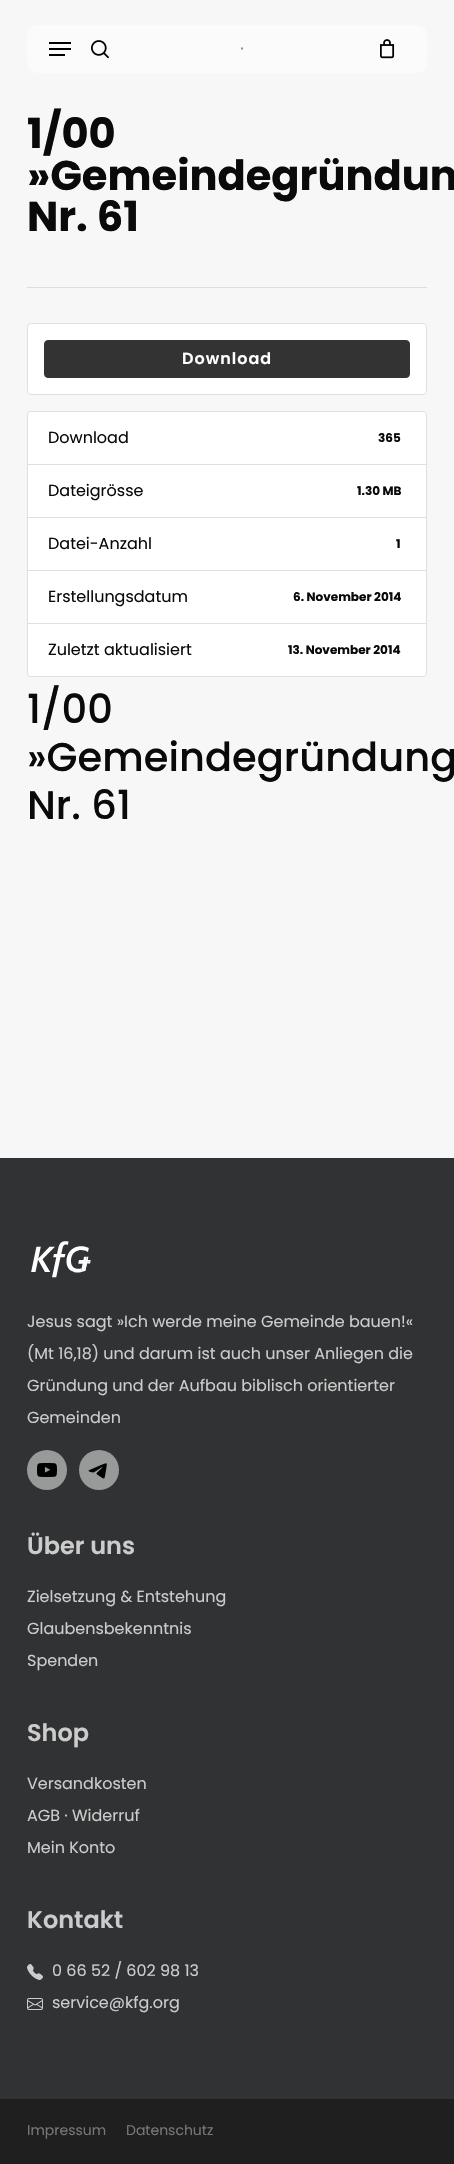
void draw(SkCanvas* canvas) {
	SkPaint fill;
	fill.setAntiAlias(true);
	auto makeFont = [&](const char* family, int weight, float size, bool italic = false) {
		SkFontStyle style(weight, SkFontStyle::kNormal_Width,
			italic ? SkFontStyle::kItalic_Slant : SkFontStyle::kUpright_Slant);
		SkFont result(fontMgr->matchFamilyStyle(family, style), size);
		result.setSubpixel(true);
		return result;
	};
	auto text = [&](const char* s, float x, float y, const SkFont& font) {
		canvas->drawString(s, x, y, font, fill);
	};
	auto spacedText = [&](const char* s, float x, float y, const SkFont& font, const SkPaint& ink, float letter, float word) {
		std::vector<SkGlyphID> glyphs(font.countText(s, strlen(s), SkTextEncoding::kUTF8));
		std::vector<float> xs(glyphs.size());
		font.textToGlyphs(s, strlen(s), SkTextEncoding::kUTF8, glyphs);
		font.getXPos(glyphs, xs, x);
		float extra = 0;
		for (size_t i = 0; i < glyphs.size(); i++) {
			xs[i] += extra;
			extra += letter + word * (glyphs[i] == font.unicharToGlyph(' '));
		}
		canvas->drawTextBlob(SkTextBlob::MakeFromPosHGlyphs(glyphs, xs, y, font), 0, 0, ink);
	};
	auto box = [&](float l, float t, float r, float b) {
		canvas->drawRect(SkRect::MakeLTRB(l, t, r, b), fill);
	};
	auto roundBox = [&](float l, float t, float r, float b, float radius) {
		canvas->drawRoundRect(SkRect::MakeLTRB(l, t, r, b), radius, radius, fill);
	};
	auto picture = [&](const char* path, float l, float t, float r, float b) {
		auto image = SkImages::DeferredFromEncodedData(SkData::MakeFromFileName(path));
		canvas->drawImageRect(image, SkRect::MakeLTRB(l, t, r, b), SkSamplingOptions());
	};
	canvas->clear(0xFFF7F7F7);
	fill.setColor(0xFFFBFBFB);
	roundBox(27, 25, 427, 73, 10);
	fill.setColor(0xFF000000);
	box(49, 42, 71, 44);
	box(49, 54, 65, 56);
	box(49, 48, 71, 50);
	picture("image0.png", 91, 40, 109, 59);
	picture("image1.png", 380, 39, 395, 59);
	fill.setColor(0xFF1D1D1B);
	canvas->drawPath(SkPathBuilder(SkPathFillType::kEvenOdd).moveTo(241.5f, 47.5f).lineTo(241.5f, 49.5f).lineTo(242.5f, 49.5f).lineTo(242.5f, 47.5f).close().detach(), fill);
	fill.setColor(0xFFDDDDDD);
	box(27, 287, 427, 288);
	fill.setColor(0xFFFFFFFF);
	roundBox(27, 323, 427, 395, 4);
	fill.setStyle(SkPaint::kStroke_Style);
	fill.setStrokeWidth(1);
	fill.setColor(0x1F000000);
	canvas->drawRoundRect(SkRect::MakeLTRB(27.5f, 323.5f, 426.5f, 394.5f), 3.5f, 3.5f, fill);
	fill.setStyle(SkPaint::kFill_Style);
	fill.setColor(0xFF333333);
	canvas->drawRoundRect(SkRect::MakeLTRB(44.5f, 340.5f, 409.5f, 377.5f), 3.5f, 3.5f, fill);
	fill.setStyle(SkPaint::kStroke_Style);
	canvas->drawRoundRect(SkRect::MakeLTRB(44.5f, 340.5f, 409.5f, 377.5f), 3.5f, 3.5f, fill);
	fill.setStyle(SkPaint::kFill_Style);
	fill.setColor(0xFFFFFFFF);
	canvas->drawPath(SkPathBuilder().moveTo(31, 411).lineTo(423, 411).cubicTo(425, 411, 427, 413, 427, 415).lineTo(427, 465).lineTo(27, 465).lineTo(27, 415).cubicTo(27, 413, 29, 411, 31, 411).close().detach(), fill);
	fill.setStyle(SkPaint::kStroke_Style);
	fill.setColor(0x1F000000);
	canvas->drawPath(SkPathBuilder().moveTo(31, 411.5f).lineTo(423, 411.5f).cubicTo(425, 411.5f, 426.5f, 413, 426.5f, 415).lineTo(426.5f, 464.5f).lineTo(27.5f, 464.5f).lineTo(27.5f, 415).cubicTo(27.5f, 413, 29, 411.5f, 31, 411.5f).close().detach(), fill);
	fill.setStyle(SkPaint::kFill_Style);
	fill.setColor(0xFFFFFFFF);
	canvas->drawRect(SkRect::MakeLTRB(27.5f, 464.5f, 426.5f, 517.5f), fill);
	fill.setStyle(SkPaint::kStroke_Style);
	fill.setColor(0xFFDFDFDF);
	canvas->drawRect(SkRect::MakeLTRB(27.5f, 464.5f, 426.5f, 517.5f), fill);
	fill.setStyle(SkPaint::kFill_Style);
	fill.setColor(0xFFFFFFFF);
	canvas->drawRect(SkRect::MakeLTRB(27.5f, 517.5f, 426.5f, 570.5f), fill);
	fill.setStyle(SkPaint::kStroke_Style);
	fill.setColor(0xFFDFDFDF);
	canvas->drawRect(SkRect::MakeLTRB(27.5f, 517.5f, 426.5f, 570.5f), fill);
	fill.setStyle(SkPaint::kFill_Style);
	fill.setColor(0xFFFFFFFF);
	canvas->drawRect(SkRect::MakeLTRB(27.5f, 570.5f, 426.5f, 623.5f), fill);
	fill.setStyle(SkPaint::kStroke_Style);
	fill.setColor(0xFFDFDFDF);
	canvas->drawRect(SkRect::MakeLTRB(27.5f, 570.5f, 426.5f, 623.5f), fill);
	fill.setStyle(SkPaint::kFill_Style);
	fill.setColor(0xFFFFFFFF);
	canvas->drawPath(SkPathBuilder().moveTo(27, 623).lineTo(427, 623).lineTo(427, 673).cubicTo(427, 675, 425, 677, 423, 677).lineTo(31, 677).cubicTo(29, 677, 27, 675, 27, 673).close().detach(), fill);
	fill.setStyle(SkPaint::kStroke_Style);
	fill.setColor(0x1F000000);
	canvas->drawPath(SkPathBuilder().moveTo(27.5f, 623.5f).lineTo(426.5f, 623.5f).lineTo(426.5f, 673).cubicTo(426.5f, 675, 425, 676.5f, 423, 676.5f).lineTo(31, 676.5f).cubicTo(29, 676.5f, 27.5f, 675, 27.5f, 673).close().detach(), fill);
	fill.setStyle(SkPaint::kFill_Style);
	fill.setColor(0xFF313233);
	box(0, 1158, 454, 2099);
	picture("image2.png", 31, 1241, 91, 1278);
	fill.setColor(0xFF989999);
	canvas->drawCircle(47, 1470, 20, fill);
	picture("image3.png", 37, 1463, 57, 1477);
	canvas->drawCircle(99, 1470, 20, fill);
	picture("image4.png", 88, 1463, 107, 1479);
	picture("image5.png", 27, 1964, 43, 1980);
	picture("image6.png", 27, 1998, 43, 2010);
	fill.setColor(0xFF1F1F1F);
	box(0, 2099, 454, 2164);
	auto font1 = makeFont("Poppins", 700, 41.6f);
	fill.setColor(0xFF0A0A0A);
	text("1/00", 27, 148, font1);
	text("»Gemeindegründun", 27, 190, font1);
	text("Nr. 61", 27, 231, font1);
	auto font2 = makeFont("Poppins", 600, 16);
	fill.setColor(0xFFFFFFFF);
	spacedText("Download", 182, 364, font2, fill, 1, 0);
	auto font3 = makeFont("Poppins", 400, 16);
	fill.setColor(0xFF0A0A0A);
	text("Download", 48, 443, font3);
	auto font4 = makeFont("Poppins", 700, 12);
	text("365", 378, 442, font4);
	text("Dateigrösse", 48, 496, font3);
	text("1.30 MB", 357, 495, font4);
	text("Datei-Anzahl", 48, 549, font3);
	text("1", 396, 548, font4);
	text("Erstellungsdatum", 48, 602, font3);
	text("6. November 2014", 293, 601, font4);
	text("Zuletzt aktualisiert", 48, 655, font3);
	text("13. November 2014", 288, 654, font4);
	auto font5 = makeFont("Poppins", 500, 40);
	text("1/00", 27, 723, font5);
	text("»Gemeindegründung", 27, 771, font5);
	text("Nr. 61", 27, 819, font5);
	fill.setColor(0xFFCCCCCC);
	text("Jesus sagt »Ich werde meine Gemeinde bauen!«", 27, 1327, font3);
	text("(Mt 16,18) und darum ist auch unser Anliegen die", 27, 1359, font3);
	text("Gründung und der Aufbau biblisch orientierter", 27, 1391, font3);
	text("Gemeinden", 27, 1423, font3);
	auto font6 = makeFont("Poppins", 600, 24);
	text("Über uns", 27, 1554, font6);
	text("Zielsetzung & Entstehung", 27, 1602, font3);
	text("Glaubensbekenntnis", 27, 1634, font3);
	text("Spenden", 27, 1666, font3);
	text("Shop", 27, 1741, font6);
	text("Versandkosten", 27, 1789, font3);
	text("AGB · Widerruf", 27, 1821, font3);
	text("Mein Konto", 27, 1853, font3);
	text("Kontakt", 27, 1928, font6);
	text("0 66 52 / 602 98 13", 52, 1976, font3);
	text("service@kfg.org", 52, 2008, font3);
	auto font7 = makeFont("Poppins", 400, 14);
	fill.setColor(0xFF777777);
	text("Impressum", 27, 2135, font7);
	text("Datenschutz", 126, 2135, font7);
}
